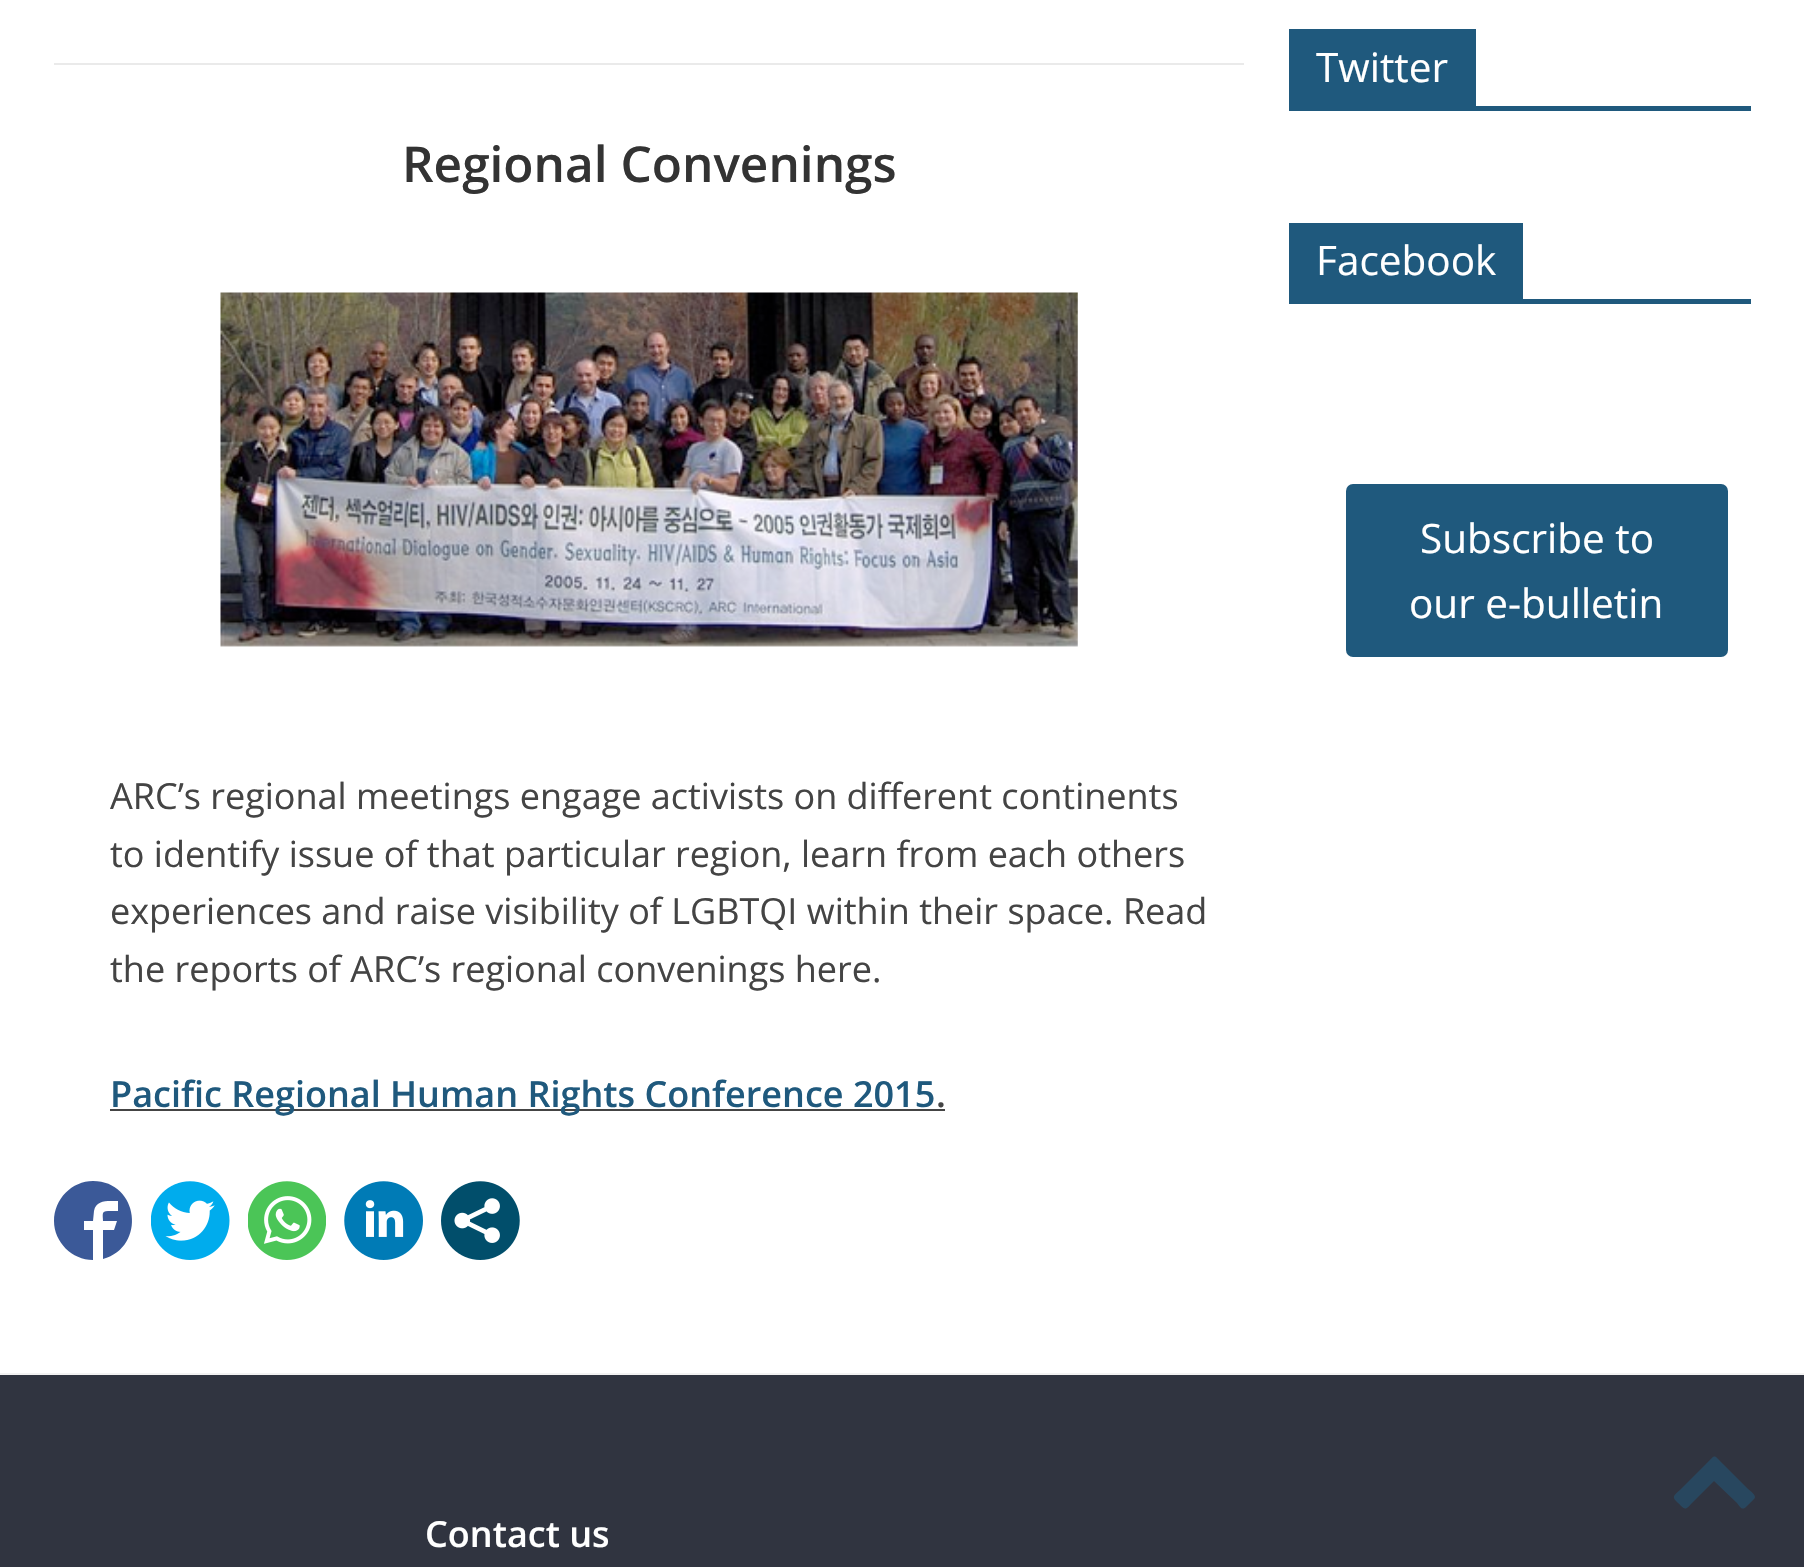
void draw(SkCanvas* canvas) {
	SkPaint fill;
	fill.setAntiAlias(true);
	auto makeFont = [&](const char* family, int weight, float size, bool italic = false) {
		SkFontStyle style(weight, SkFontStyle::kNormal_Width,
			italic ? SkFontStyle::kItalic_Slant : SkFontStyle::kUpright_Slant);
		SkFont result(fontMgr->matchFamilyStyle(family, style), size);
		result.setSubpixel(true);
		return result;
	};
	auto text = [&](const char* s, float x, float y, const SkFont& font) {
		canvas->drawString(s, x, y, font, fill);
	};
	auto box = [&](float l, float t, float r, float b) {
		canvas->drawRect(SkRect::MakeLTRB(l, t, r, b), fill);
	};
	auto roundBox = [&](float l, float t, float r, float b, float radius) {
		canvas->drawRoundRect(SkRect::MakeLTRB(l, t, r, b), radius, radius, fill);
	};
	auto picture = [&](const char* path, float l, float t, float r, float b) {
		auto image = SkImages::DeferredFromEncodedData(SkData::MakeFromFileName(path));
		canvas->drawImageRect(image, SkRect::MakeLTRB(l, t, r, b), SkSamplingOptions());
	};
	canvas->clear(0xFFFFFFFF);
	fill.setColor(0xFFEAEAEA);
	box(54, 63, 1244, 65);
	picture("image0.png", 220, 292, 1078, 647);
	fill.setColor(0xFF444444);
	box(110, 1109, 945, 1111);
	fill.setColor(0xFF3B5998);
	canvas->drawPath(SkPathBuilder().moveTo(93, 1181).cubicTo(72, 1181, 54, 1199, 54, 1221).cubicTo(54, 1242, 72, 1260, 93, 1260).lineTo(93, 1230).lineTo(84, 1230).lineTo(84, 1221).lineTo(93, 1221).lineTo(94, 1211).cubicTo(96, 1199, 109, 1201, 118, 1201).lineTo(118, 1211).lineTo(108, 1211).cubicTo(101, 1211, 103, 1215, 103, 1221).lineTo(117, 1221).lineTo(114, 1230).lineTo(103, 1230).lineTo(103, 1259).cubicTo(147, 1247, 139, 1181, 93, 1181).close().detach(), fill);
	picture("image1.png", 151, 1181, 230, 1260);
	picture("image2.png", 248, 1181, 326, 1260);
	picture("image3.png", 344, 1181, 423, 1260);
	picture("image4.png", 441, 1181, 520, 1260);
	fill.setColor(0xFF1F597D);
	box(1289, 106, 1751, 111);
	box(1289, 29, 1476, 106);
	box(1289, 299, 1751, 304);
	box(1289, 223, 1523, 299);
	roundBox(1346, 484, 1728, 657, 7);
	fill.setColor(0xFF303440);
	box(0, 1375, 1804, 1567);
	fill.setColor(0xFF28475F);
	canvas->drawPath(SkPathBuilder().moveTo(1754, 1499).lineTo(1747, 1506).cubicTo(1742, 1511, 1741, 1508, 1737, 1503).lineTo(1714, 1481).lineTo(1692, 1503).cubicTo(1684, 1512, 1685, 1509, 1676, 1501).cubicTo(1671, 1496, 1676, 1494, 1681, 1489).lineTo(1706, 1464).cubicTo(1716, 1454, 1713, 1454, 1723, 1464).lineTo(1748, 1489).cubicTo(1749, 1490, 1758, 1496, 1754, 1499).close().detach(), fill);
	fill.setColor(0xFFF2F2F2);
	box(0, 1373, 1804, 1375);
	auto font1 = makeFont("Open Sans", 600, 49.5f);
	fill.setColor(0xFF333333);
	text("Regional Convenings", 402, 182, font1);
	auto font2 = makeFont("Open Sans", 400, 36);
	fill.setColor(0xFF444444);
	text("ARC’s regional meetings engage activists on different continents", 110, 809, font2);
	text("to identify issue of that particular region, learn from each others", 110, 867, font2);
	text("experiences and raise visibility of LGBTQI within their space. Read", 110, 924, font2);
	text("the reports of ARC’s regional convenings here.", 110, 982, font2);
	auto font3 = makeFont("Open Sans", 600, 36);
	fill.setColor(0xFF1F597D);
	text("Pacific Regional Human Rights Conference 2015", 110, 1107, font3);
	fill.setColor(0xFF444444);
	text(".", 936, 1107, font3);
	auto font4 = makeFont("Open Sans", 400, 40.5f);
	fill.setColor(0xFFFFFFFF);
	text("Twitter", 1316, 82, font4);
	text("Facebook", 1316, 275, font4);
	text("Subscribe to", 1420, 553, font4);
	text("our e-bulletin", 1409, 618, font4);
	text("Contact us", 425, 1547, font3);
}
